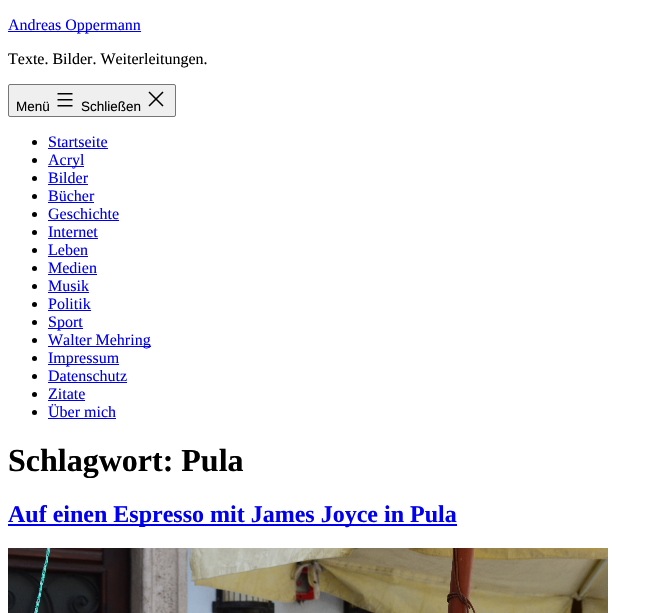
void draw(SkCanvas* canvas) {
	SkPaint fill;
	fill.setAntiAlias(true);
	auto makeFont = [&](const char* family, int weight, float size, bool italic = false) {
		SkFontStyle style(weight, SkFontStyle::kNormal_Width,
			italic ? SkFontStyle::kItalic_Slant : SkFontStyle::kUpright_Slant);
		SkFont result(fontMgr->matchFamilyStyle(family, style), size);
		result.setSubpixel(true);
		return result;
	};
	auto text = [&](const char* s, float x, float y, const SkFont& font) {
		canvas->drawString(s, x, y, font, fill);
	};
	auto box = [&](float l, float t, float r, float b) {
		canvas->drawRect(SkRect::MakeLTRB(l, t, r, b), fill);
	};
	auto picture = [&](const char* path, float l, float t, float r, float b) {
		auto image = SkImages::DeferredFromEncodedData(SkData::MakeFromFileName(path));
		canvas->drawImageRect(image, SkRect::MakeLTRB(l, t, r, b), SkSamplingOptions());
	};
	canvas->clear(0xFFFFFFFF);
	fill.setColor(0xFF0000EE);
	box(8, 31, 141, 32);
	fill.setColor(0xFFEFEFEF);
	canvas->drawRoundRect(SkRect::MakeLTRB(8.5f, 84.5f, 175.5f, 116.5f), 1.5f, 1.5f, fill);
	fill.setStyle(SkPaint::kStroke_Style);
	fill.setStrokeWidth(1);
	fill.setColor(0xFF767676);
	canvas->drawRoundRect(SkRect::MakeLTRB(8.5f, 84.5f, 175.5f, 116.5f), 1.5f, 1.5f, fill);
	picture("image0.png", 57, 93, 73, 107);
	picture("image1.png", 148, 91, 164, 107);
	fill.setStyle(SkPaint::kFill_Style);
	fill.setColor(0xFF000000);
	canvas->drawCircle(34.5f, 142.5f, 2.5f, fill);
	fill.setColor(0xFF0000EE);
	box(48, 148, 108, 149);
	fill.setColor(0xFF000000);
	canvas->drawCircle(34.5f, 160.5f, 2.5f, fill);
	fill.setColor(0xFF0000EE);
	box(48, 166, 84, 167);
	fill.setColor(0xFF000000);
	canvas->drawCircle(34.5f, 178.5f, 2.5f, fill);
	fill.setColor(0xFF0000EE);
	box(48, 184, 88, 185);
	fill.setColor(0xFF000000);
	canvas->drawCircle(34.5f, 196.5f, 2.5f, fill);
	fill.setColor(0xFF0000EE);
	box(48, 202, 94, 203);
	fill.setColor(0xFF000000);
	canvas->drawCircle(34.5f, 214.5f, 2.5f, fill);
	fill.setColor(0xFF0000EE);
	box(48, 220, 119, 221);
	fill.setColor(0xFF000000);
	canvas->drawCircle(34.5f, 232.5f, 2.5f, fill);
	fill.setColor(0xFF0000EE);
	box(48, 238, 98, 239);
	fill.setColor(0xFF000000);
	canvas->drawCircle(34.5f, 250.5f, 2.5f, fill);
	fill.setColor(0xFF0000EE);
	box(48, 256, 88, 257);
	fill.setColor(0xFF000000);
	canvas->drawCircle(34.5f, 268.5f, 2.5f, fill);
	fill.setColor(0xFF0000EE);
	box(48, 274, 97, 275);
	fill.setColor(0xFF000000);
	canvas->drawCircle(34.5f, 286.5f, 2.5f, fill);
	fill.setColor(0xFF0000EE);
	box(48, 292, 89, 293);
	fill.setColor(0xFF000000);
	canvas->drawCircle(34.5f, 304.5f, 2.5f, fill);
	fill.setColor(0xFF0000EE);
	box(48, 310, 91, 311);
	fill.setColor(0xFF000000);
	canvas->drawCircle(34.5f, 322.5f, 2.5f, fill);
	fill.setColor(0xFF0000EE);
	box(48, 328, 83, 329);
	fill.setColor(0xFF000000);
	canvas->drawCircle(34.5f, 340.5f, 2.5f, fill);
	fill.setColor(0xFF0000EE);
	box(48, 346, 151, 347);
	fill.setColor(0xFF000000);
	canvas->drawCircle(34.5f, 358.5f, 2.5f, fill);
	fill.setColor(0xFF0000EE);
	box(48, 364, 119, 365);
	fill.setColor(0xFF000000);
	canvas->drawCircle(34.5f, 376.5f, 2.5f, fill);
	fill.setColor(0xFF0000EE);
	box(48, 382, 127, 383);
	fill.setColor(0xFF000000);
	canvas->drawCircle(34.5f, 394.5f, 2.5f, fill);
	fill.setColor(0xFF0000EE);
	box(48, 400, 85, 401);
	fill.setColor(0xFF000000);
	canvas->drawCircle(34.5f, 412.5f, 2.5f, fill);
	fill.setColor(0xFF0000EE);
	box(48, 418, 116, 419);
	box(8, 524, 457, 526);
	picture("image2.png", 8, 548, 608, 613);
	auto font1 = makeFont("Liberation Serif", 400, 16);
	text("Andreas Oppermann", 8, 30, font1);
	fill.setColor(0xFF000000);
	text("Texte. Bilder. Weiterleitungen.", 8, 64, font1);
	auto font2 = makeFont("Liberation Sans", 400, 13.5f);
	text("Menü", 16, 111, font2);
	text("Schließen", 81, 111, font2);
	fill.setColor(0xFF0000EE);
	text("Startseite", 48, 147, font1);
	text("Acryl", 48, 165, font1);
	text("Bilder", 48, 183, font1);
	text("Bücher", 48, 201, font1);
	text("Geschichte", 48, 219, font1);
	text("Internet", 48, 237, font1);
	text("Leben", 48, 255, font1);
	text("Medien", 48, 273, font1);
	text("Musik", 48, 291, font1);
	text("Politik", 48, 309, font1);
	text("Sport", 48, 327, font1);
	text("Walter Mehring", 48, 345, font1);
	text("Impressum", 48, 363, font1);
	text("Datenschutz", 48, 381, font1);
	text("Zitate", 48, 399, font1);
	text("Über mich", 48, 417, font1);
	auto font3 = makeFont("Liberation Serif", 700, 32);
	fill.setColor(0xFF000000);
	text("Schlagwort: Pula", 8, 471, font3);
	auto font4 = makeFont("Liberation Serif", 700, 24);
	fill.setColor(0xFF0000EE);
	text("Auf einen Espresso mit James Joyce in Pula", 8, 522, font4);
}
